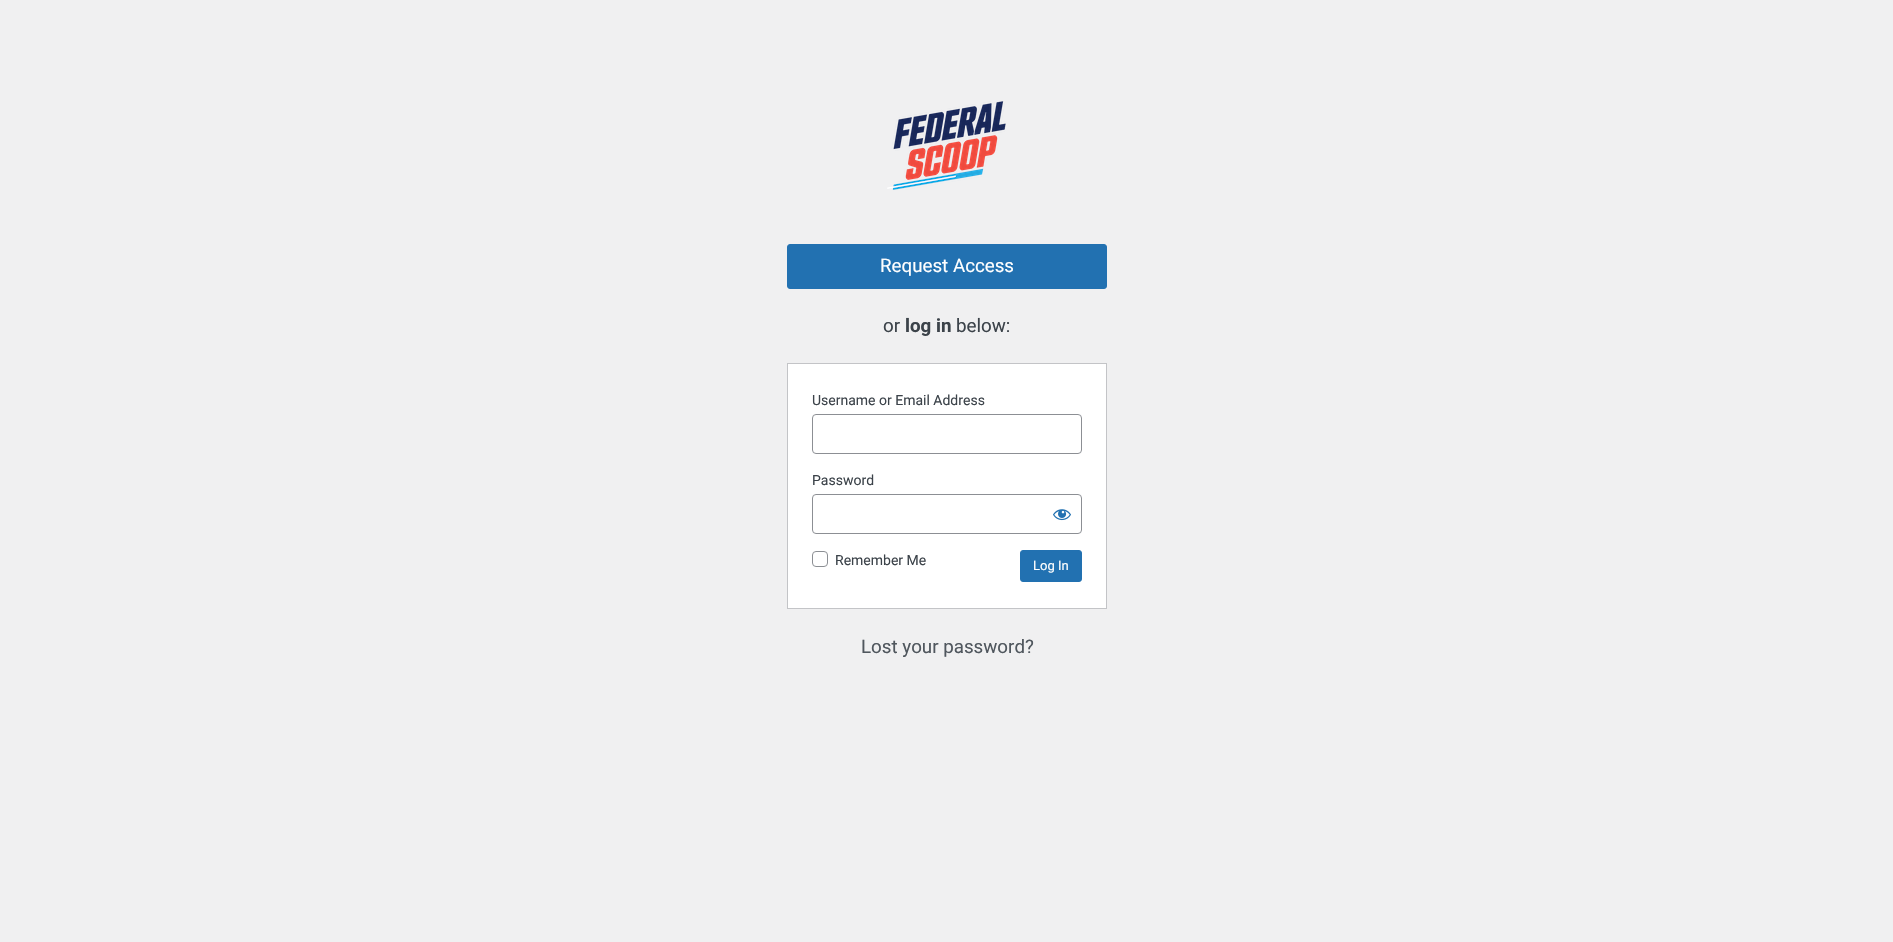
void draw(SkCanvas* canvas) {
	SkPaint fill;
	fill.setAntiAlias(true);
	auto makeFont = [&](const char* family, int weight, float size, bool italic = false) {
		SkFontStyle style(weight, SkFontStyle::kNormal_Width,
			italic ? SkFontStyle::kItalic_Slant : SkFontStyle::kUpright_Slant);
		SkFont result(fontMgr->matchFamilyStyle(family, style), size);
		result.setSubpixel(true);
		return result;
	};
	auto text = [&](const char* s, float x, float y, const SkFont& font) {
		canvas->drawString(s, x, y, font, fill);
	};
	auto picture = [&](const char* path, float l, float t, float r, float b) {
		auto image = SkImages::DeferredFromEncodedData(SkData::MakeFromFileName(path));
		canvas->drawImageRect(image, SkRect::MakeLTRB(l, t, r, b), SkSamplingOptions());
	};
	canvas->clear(0xFFF0F0F1);
	picture("image0.png", 887, 101, 1006, 190);
	fill.setColor(0xFF2271B1);
	canvas->drawRoundRect(SkRect::MakeLTRB(787.5f, 244.5f, 1106.5f, 288.5f), 2.5f, 2.5f, fill);
	fill.setStyle(SkPaint::kStroke_Style);
	fill.setStrokeWidth(1);
	canvas->drawRoundRect(SkRect::MakeLTRB(787.5f, 244.5f, 1106.5f, 288.5f), 2.5f, 2.5f, fill);
	fill.setStyle(SkPaint::kFill_Style);
	fill.setColor(0xFFFFFFFF);
	canvas->drawRect(SkRect::MakeLTRB(787.5f, 363.5f, 1106.5f, 608.5f), fill);
	fill.setStyle(SkPaint::kStroke_Style);
	fill.setColor(0xFFC3C4C7);
	canvas->drawRect(SkRect::MakeLTRB(787.5f, 363.5f, 1106.5f, 608.5f), fill);
	fill.setColor(0xFF8C8F94);
	canvas->drawRoundRect(SkRect::MakeLTRB(812.5f, 414.5f, 1081.5f, 453.5f), 3.5f, 3.5f, fill);
	canvas->drawRoundRect(SkRect::MakeLTRB(812.5f, 494.5f, 1081.5f, 533.5f), 3.5f, 3.5f, fill);
	picture("image1.png", 1053, 509, 1071, 521);
	canvas->drawRoundRect(SkRect::MakeLTRB(812.5f, 551.5f, 827.5f, 566.5f), 3.5f, 3.5f, fill);
	fill.setStyle(SkPaint::kFill_Style);
	fill.setColor(0xFF2271B1);
	canvas->drawRoundRect(SkRect::MakeLTRB(1020.5f, 550.5f, 1081.5f, 581.5f), 2.5f, 2.5f, fill);
	fill.setStyle(SkPaint::kStroke_Style);
	canvas->drawRoundRect(SkRect::MakeLTRB(1020.5f, 550.5f, 1081.5f, 581.5f), 2.5f, 2.5f, fill);
	auto font1 = makeFont("Roboto", 400, 18.75f);
	fill.setStyle(SkPaint::kFill_Style);
	fill.setColor(0xFFFFFFFF);
	text("Request Access", 880, 272, font1);
	fill.setColor(0xFF3C434A);
	text("or", 883, 332, font1);
	auto font2 = makeFont("Roboto", 700, 18.75f);
	text("log in", 905, 332, font2);
	text("below:", 956, 332, font1);
	auto font3 = makeFont("Roboto", 400, 14);
	text("Username or Email Address", 812, 405, font3);
	text("Password", 812, 485, font3);
	text("Remember Me", 835, 565, font3);
	auto font4 = makeFont("Roboto", 400, 13);
	fill.setColor(0xFFFFFFFF);
	text("Log In", 1033, 570, font4);
	fill.setColor(0xFF50575E);
	text("Lost your password?", 861, 653, font1);
}
